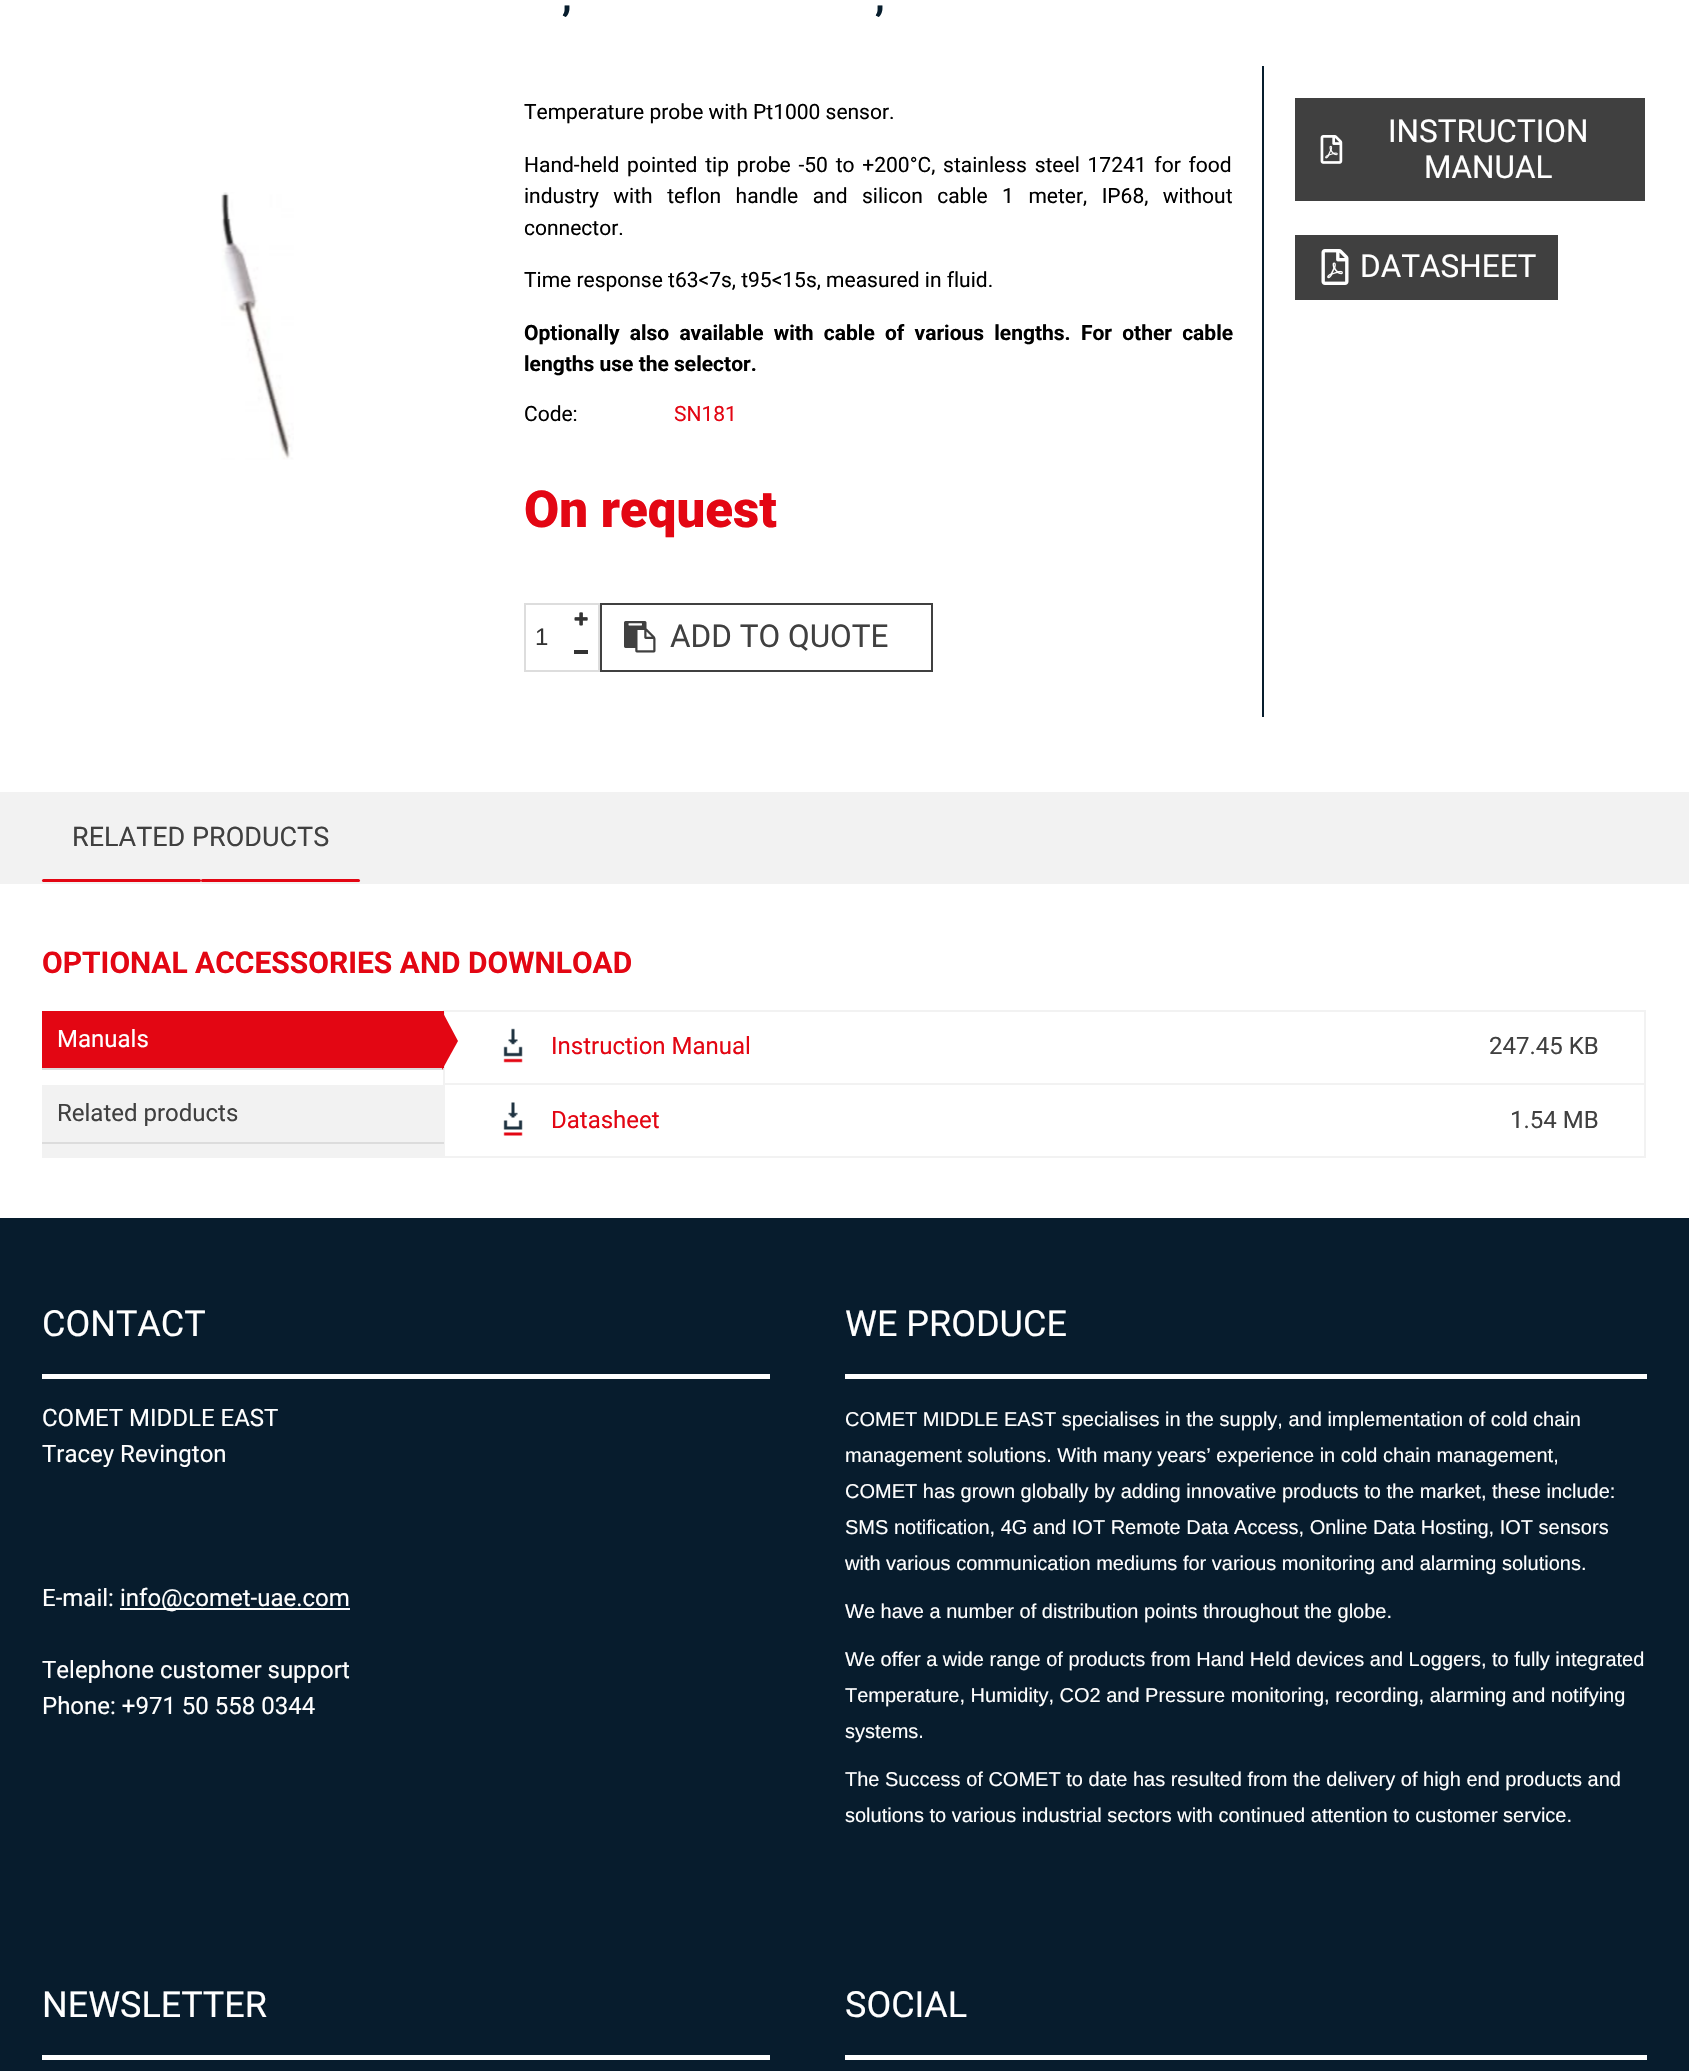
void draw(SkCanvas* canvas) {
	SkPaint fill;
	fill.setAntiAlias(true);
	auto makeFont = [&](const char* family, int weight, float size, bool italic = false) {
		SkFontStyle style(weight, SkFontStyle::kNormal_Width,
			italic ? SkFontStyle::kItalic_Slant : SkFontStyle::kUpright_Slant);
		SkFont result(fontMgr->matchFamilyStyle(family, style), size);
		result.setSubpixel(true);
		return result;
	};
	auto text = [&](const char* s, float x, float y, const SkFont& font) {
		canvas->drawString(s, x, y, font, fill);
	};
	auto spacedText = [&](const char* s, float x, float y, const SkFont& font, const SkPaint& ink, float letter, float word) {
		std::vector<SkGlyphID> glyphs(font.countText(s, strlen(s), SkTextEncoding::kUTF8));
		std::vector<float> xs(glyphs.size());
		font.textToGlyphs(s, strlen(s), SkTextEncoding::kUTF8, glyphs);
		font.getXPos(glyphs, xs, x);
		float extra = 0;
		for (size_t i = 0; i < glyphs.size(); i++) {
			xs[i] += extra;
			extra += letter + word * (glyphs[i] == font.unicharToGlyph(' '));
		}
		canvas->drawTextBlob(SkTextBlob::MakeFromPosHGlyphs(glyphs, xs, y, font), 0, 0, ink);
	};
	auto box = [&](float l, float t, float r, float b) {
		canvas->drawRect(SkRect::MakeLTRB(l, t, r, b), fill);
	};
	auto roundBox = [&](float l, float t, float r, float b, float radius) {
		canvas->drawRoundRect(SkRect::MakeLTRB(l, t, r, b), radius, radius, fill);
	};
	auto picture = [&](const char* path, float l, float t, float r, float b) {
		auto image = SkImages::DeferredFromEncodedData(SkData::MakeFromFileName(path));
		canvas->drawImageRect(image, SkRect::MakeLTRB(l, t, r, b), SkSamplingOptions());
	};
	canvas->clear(0xFFFFFFFF);
	picture("image0.png", 221, 192, 294, 460);
	fill.setColor(0xFF071D2D);
	box(1262, 66, 1264, 717);
	fill.setStyle(SkPaint::kStroke_Style);
	fill.setStrokeWidth(2);
	fill.setColor(0xFFDDDDDD);
	canvas->drawRect(SkRect::MakeLTRB(525, 604, 599, 671), fill);
	picture("image1.png", 574, 612, 588, 626);
	fill.setStyle(SkPaint::kFill_Style);
	fill.setColor(0xFF333333);
	box(574, 650, 588, 654);
	fill.setStyle(SkPaint::kStroke_Style);
	fill.setColor(0xFF404040);
	canvas->drawRect(SkRect::MakeLTRB(601, 604, 932, 671), fill);
	picture("image2.png", 624, 621, 656, 653);
	fill.setStyle(SkPaint::kFill_Style);
	box(1295, 98, 1645, 201);
	picture("image3.png", 1320, 135, 1343, 164);
	box(1295, 235, 1558, 300);
	picture("image4.png", 1321, 249, 1349, 285);
	fill.setColor(0xFFF2F2F2);
	box(0, 792, 1689, 884);
	fill.setColor(0xFFE30613);
	roundBox(42, 879, 201, 882, 1.5f);
	roundBox(201, 879, 360, 882, 1.5f);
	fill.setColor(0xFFF2F2F2);
	box(42, 1085, 443, 1158);
	fill.setStyle(SkPaint::kStroke_Style);
	canvas->drawRect(SkRect::MakeLTRB(444, 1011, 1645, 1084), fill);
	fill.setStyle(SkPaint::kFill_Style);
	fill.setColor(0xFFE30613);
	box(42, 1011, 444, 1068);
	fill.setColor(0xFFDCDCDC);
	box(42, 1068, 444, 1070);
	fill.setColor(0xFFE30613);
	canvas->drawPath(SkPathBuilder().moveTo(442, 1070).lineTo(442, 1011).lineTo(458, 1041).close().detach(), fill);
	fill.setStyle(SkPaint::kStroke_Style);
	fill.setColor(0xFFF2F2F2);
	canvas->drawRect(SkRect::MakeLTRB(444, 1084, 1645, 1157), fill);
	fill.setStyle(SkPaint::kFill_Style);
	fill.setColor(0xFFDCDCDC);
	box(42, 1142, 444, 1144);
	picture("image5.png", 503, 1028, 523, 1063);
	picture("image6.png", 503, 1102, 523, 1136);
	fill.setColor(0xFF071C2D);
	box(0, 1218, 1689, 2071);
	fill.setColor(0xFFFFFFFF);
	box(42, 1374, 770, 1379);
	box(120, 1608, 350, 1610);
	box(845, 1374, 1647, 1379);
	box(42, 2055, 770, 2060);
	box(845, 2055, 1647, 2060);
	auto font1 = makeFont("Roboto", 900, 36);
	fill.setColor(0xFF071D2D);
	text(",", 562, 10, font1);
	text(",", 875, 10, font1);
	auto font2 = makeFont("Roboto", 400, 21);
	fill.setColor(0xFF000000);
	text("Temperature probe with Pt1000 sensor.", 524, 119, font2);
	spacedText("Hand-held pointed tip probe -50 to +200°C, stainless steel 17241 for food", 524, 172, font2, fill, 0, 2.6f);
	spacedText("industry with teflon handle and silicon cable 1 meter, IP68, without", 524, 203, font2, fill, 0, 9.25f);
	text("connector.", 524, 235, font2);
	text("Time response t63<7s, t95<15s, measured in fluid.", 524, 287, font2);
	auto font3 = makeFont("Roboto", 700, 21);
	spacedText("Optionally also available with cable of various lengths. For other cable", 524, 340, font3, fill, 0, 5);
	text("lengths use the selector.", 524, 371, font3);
	text("Code:", 524, 421, font2);
	fill.setColor(0xFFE30613);
	text("SN181", 674, 421, font2);
	auto font4 = makeFont("Roboto", 900, 51);
	text("On request", 524, 527, font4);
	auto font5 = makeFont("Liberation Sans", 400, 24);
	fill.setColor(0xFF333333);
	text("1", 535, 645, font5);
	auto font6 = makeFont("Roboto", 400, 31.5f);
	fill.setColor(0xFF404040);
	text("ADD TO QUOTE", 670, 647, font6);
	fill.setColor(0xFFFFFFFF);
	text("INSTRUCTION", 1388, 142, font6);
	text("MANUAL", 1424, 178, font6);
	text("DATASHEET", 1360, 277, font6);
	auto font7 = makeFont("Roboto", 400, 27);
	fill.setColor(0xFF404040);
	text("RELATED PRODUCTS", 72, 846, font7);
	auto font8 = makeFont("Roboto", 700, 30);
	fill.setColor(0xFFE30613);
	text("OPTIONAL ACCESSORIES AND DOWNLOAD", 42, 973, font8);
	auto font9 = makeFont("Roboto", 400, 24);
	fill.setColor(0xFFFFFFFF);
	text("Manuals", 57, 1047, font9);
	fill.setColor(0xFF404040);
	text("Related products", 57, 1121, font9);
	fill.setColor(0xFFE30613);
	text("Instruction Manual", 551, 1054, font9);
	fill.setColor(0xFF404040);
	text("247.45 KB", 1489, 1054, font9);
	fill.setColor(0xFFE30613);
	text("Datasheet", 551, 1128, font9);
	fill.setColor(0xFF404040);
	text("1.54 MB", 1510, 1128, font9);
	auto font10 = makeFont("Roboto", 400, 36);
	fill.setColor(0xFFFFFFFF);
	text("CONTACT", 42, 1336, font10);
	text("COMET MIDDLE EAST", 42, 1426, font9);
	text("Tracey Revington", 42, 1462, font9);
	text("E-mail:", 42, 1606, font9);
	text("info@comet-uae.com", 120, 1606, font9);
	text("Telephone customer support", 42, 1678, font9);
	text("Phone: +971 50 558 0344", 42, 1714, font9);
	text("WE PRODUCE", 845, 1336, font10);
	auto font11 = makeFont("Liberation Sans", 400, 20);
	text("COMET MIDDLE EAST specialises in the supply, and implementation of cold chain", 845, 1426, font11);
	text("management solutions. With many years’ experience in cold chain management,", 845, 1462, font11);
	text("COMET has grown globally by adding innovative products to the market, these include:", 845, 1498, font11);
	text("SMS notification, 4G and IOT Remote Data Access, Online Data Hosting, IOT sensors", 845, 1534, font11);
	text("with various communication mediums for various monitoring and alarming solutions.", 845, 1570, font11);
	text("We have a number of distribution points throughout the globe.", 845, 1618, font11);
	text("We offer a wide range of products from Hand Held devices and Loggers, to fully integrated", 845, 1666, font11);
	text("Temperature, Humidity, CO2 and Pressure monitoring, recording, alarming and notifying", 845, 1702, font11);
	text("systems.", 845, 1738, font11);
	text("The Success of COMET to date has resulted from the delivery of high end products and", 845, 1786, font11);
	text("solutions to various industrial sectors with continued attention to customer service.", 845, 1822, font11);
	text("NEWSLETTER", 42, 2017, font10);
	text("SOCIAL", 845, 2017, font10);
}
